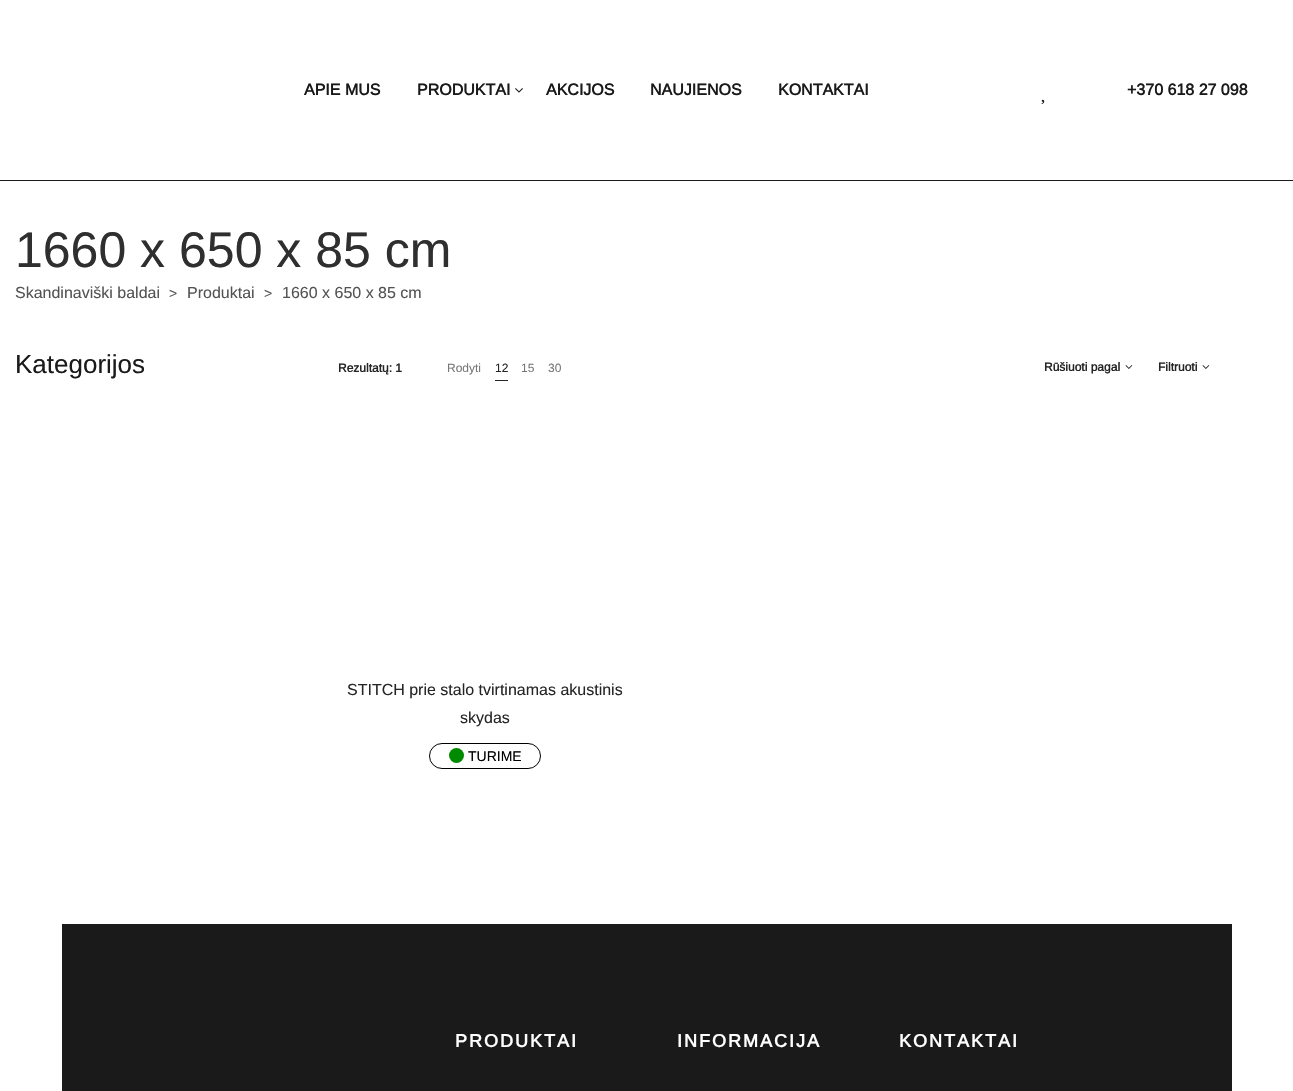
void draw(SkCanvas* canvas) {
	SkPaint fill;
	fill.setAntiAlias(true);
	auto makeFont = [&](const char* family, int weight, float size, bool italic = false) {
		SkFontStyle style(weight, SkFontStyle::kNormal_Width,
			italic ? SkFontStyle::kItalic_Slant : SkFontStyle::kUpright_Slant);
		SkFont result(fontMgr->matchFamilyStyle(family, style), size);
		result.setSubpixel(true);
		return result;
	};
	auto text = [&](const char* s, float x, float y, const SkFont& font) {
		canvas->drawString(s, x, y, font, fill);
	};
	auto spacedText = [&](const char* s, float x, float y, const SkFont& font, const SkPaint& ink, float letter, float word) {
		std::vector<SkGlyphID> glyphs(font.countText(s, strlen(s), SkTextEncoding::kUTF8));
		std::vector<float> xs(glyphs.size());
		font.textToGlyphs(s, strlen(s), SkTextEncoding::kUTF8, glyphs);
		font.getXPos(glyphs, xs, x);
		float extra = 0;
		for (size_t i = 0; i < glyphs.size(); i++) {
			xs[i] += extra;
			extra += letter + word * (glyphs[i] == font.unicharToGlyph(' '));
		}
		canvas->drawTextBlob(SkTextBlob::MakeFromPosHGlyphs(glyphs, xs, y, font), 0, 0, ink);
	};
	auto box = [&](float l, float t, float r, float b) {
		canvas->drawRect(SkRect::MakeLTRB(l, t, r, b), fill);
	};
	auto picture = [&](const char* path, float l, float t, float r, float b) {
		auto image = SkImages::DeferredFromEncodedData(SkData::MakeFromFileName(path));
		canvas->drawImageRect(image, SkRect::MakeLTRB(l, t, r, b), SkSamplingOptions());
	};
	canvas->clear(0xFFFFFFFF);
	fill.setColor(0xFF1A1A1A);
	box(0, 180, 1293, 181);
	picture("image0.png", 515, 88, 523, 93);
	picture("image1.png", 1041, 99, 1045, 104);
	fill.setColor(0xFF262626);
	box(495, 380, 508, 381);
	picture("image2.png", 1125, 365, 1133, 369);
	picture("image2.png", 1202, 365, 1210, 369);
	fill.setStyle(SkPaint::kStroke_Style);
	fill.setStrokeWidth(1);
	fill.setColor(0xFF000000);
	canvas->drawRoundRect(SkRect::MakeLTRB(429.5f, 743.5f, 540.5f, 768.5f), 12.5f, 12.5f, fill);
	fill.setStyle(SkPaint::kFill_Style);
	fill.setColor(0xFF008A00);
	canvas->drawCircle(456.5f, 755.5f, 7.5f, fill);
	fill.setColor(0xFF1A1A1A);
	box(62, 924, 1232, 1091);
	auto font1 = makeFont("Arimo", 700, 16);
	text("APIE MUS", 304, 95, font1);
	text("PRODUKTAI", 417, 95, font1);
	text("AKCIJOS", 546, 95, font1);
	text("NAUJIENOS", 650, 95, font1);
	text("KONTAKTAI", 778, 95, font1);
	text("+370 618 27 098", 1127, 95, font1);
	auto font2 = makeFont("Arimo", 400, 50);
	fill.setColor(0xFF2F2F2F);
	text("1660 x 650 x 85 cm", 15, 267, font2);
	auto font3 = makeFont("Arimo", 400, 16);
	fill.setColor(0xFF535353);
	text("Skandinaviški baldai", 15, 298, font3);
	auto font4 = makeFont("Arimo", 400, 14);
	text(">", 169, 298, font4);
	text("Produktai", 187, 298, font3);
	text(">", 264, 298, font4);
	text("1660 x 650 x 85 cm", 282, 298, font3);
	auto font5 = makeFont("Arimo", 400, 26);
	fill.setColor(0xFF1A1A1A);
	text("Kategorijos", 15, 373, font5);
	auto font6 = makeFont("Arimo", 700, 12);
	fill.setColor(0xFF262626);
	text("Rezultatų: 1", 338, 372, font6);
	auto font7 = makeFont("Arimo", 400, 12);
	fill.setColor(0xFF777777);
	text("Rodyti", 447, 372, font7);
	fill.setColor(0xFF262626);
	text("12", 495, 372, font7);
	fill.setColor(0xFF777777);
	text("15", 521, 372, font7);
	text("30", 548, 372, font7);
	fill.setColor(0xFF262626);
	text("Rūšiuoti pagal", 1044, 371, font6);
	text("Filtruoti", 1158, 371, font6);
	text("STITCH prie stalo tvirtinamas akustinis", 347, 695, font3);
	text("skydas", 460, 723, font3);
	fill.setColor(0xFF000000);
	text("TURIME", 468, 761, font4);
	auto font8 = makeFont("Arimo", 700, 18);
	fill.setColor(0xFFFFFFFF);
	spacedText("PRODUKTAI", 455, 1047, font8, fill, 2, 0);
	spacedText("INFORMACIJA", 677, 1047, font8, fill, 2, 0);
	spacedText("KONTAKTAI", 899, 1047, font8, fill, 2, 0);
}
